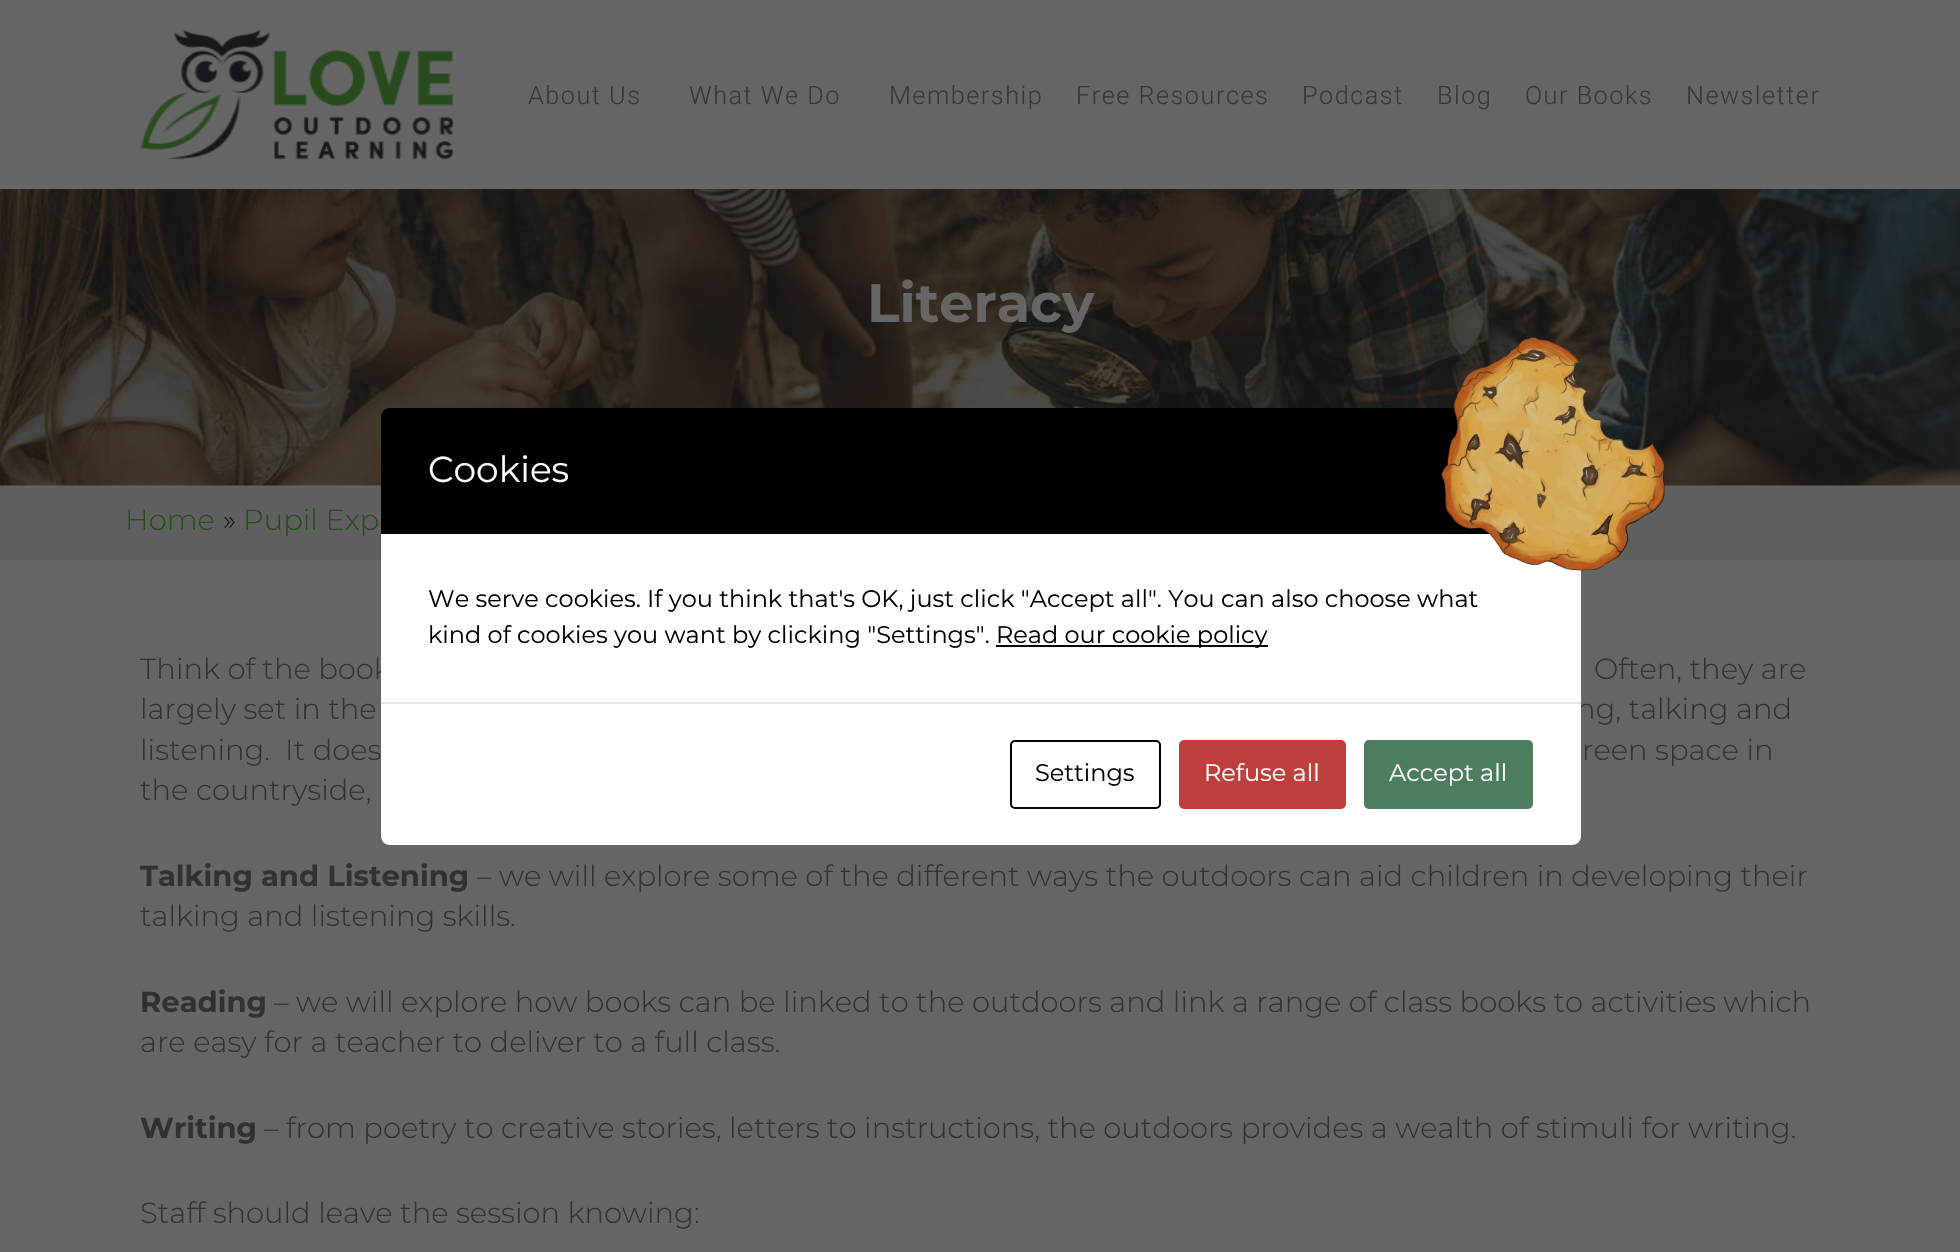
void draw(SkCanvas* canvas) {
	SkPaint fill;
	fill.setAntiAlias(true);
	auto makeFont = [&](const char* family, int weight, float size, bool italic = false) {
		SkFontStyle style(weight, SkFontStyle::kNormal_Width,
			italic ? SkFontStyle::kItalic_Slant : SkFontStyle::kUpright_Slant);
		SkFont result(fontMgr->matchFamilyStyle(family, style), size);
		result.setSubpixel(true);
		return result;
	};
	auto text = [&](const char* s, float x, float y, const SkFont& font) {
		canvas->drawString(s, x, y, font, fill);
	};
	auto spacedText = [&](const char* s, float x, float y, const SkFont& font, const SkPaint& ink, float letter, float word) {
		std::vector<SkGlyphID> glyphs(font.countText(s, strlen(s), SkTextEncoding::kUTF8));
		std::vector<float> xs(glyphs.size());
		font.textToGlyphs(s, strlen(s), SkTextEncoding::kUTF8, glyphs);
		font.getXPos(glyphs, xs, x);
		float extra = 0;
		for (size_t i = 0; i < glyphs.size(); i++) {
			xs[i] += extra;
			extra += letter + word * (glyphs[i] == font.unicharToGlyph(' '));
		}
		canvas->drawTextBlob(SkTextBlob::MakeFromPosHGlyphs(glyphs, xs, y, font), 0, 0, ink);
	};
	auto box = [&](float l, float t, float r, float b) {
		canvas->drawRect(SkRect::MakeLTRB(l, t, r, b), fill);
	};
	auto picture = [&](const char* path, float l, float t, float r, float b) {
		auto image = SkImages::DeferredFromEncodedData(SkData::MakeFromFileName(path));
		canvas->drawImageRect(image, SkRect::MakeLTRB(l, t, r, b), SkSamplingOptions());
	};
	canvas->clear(0xFF666666);
	picture("image0.png", 140, 30, 453, 160);
	picture("image1.png", 0, 189, 1960, 486);
	fill.setColor(0xFF606060);
	box(0, 486, 1960, 560);
	fill.setColor(0xFF000000);
	canvas->drawPath(SkPathBuilder().moveTo(390, 408).lineTo(1572, 408).cubicTo(1577, 408, 1581, 412, 1581, 417).lineTo(1581, 534).lineTo(381, 534).lineTo(381, 417).cubicTo(381, 412, 385, 408, 390, 408).close().detach(), fill);
	auto font1 = makeFont("Roboto", 300, 25.25f);
	fill.setColor(0xFF373737);
	spacedText("About Us", 528, 104, font1, fill, 1.5f, 0);
	spacedText("What We Do", 689, 104, font1, fill, 1.5f, 0);
	spacedText("Membership", 889, 104, font1, fill, 1.5f, 0);
	spacedText("Free Resources", 1076, 104, font1, fill, 1.5f, 0);
	spacedText("Podcast", 1302, 104, font1, fill, 1.5f, 0);
	spacedText("Blog", 1437, 104, font1, fill, 1.5f, 0);
	spacedText("Our Books", 1525, 104, font1, fill, 1.5f, 0);
	spacedText("Newsletter", 1686, 104, font1, fill, 1.5f, 0);
	auto font2 = makeFont("Montserrat", 700, 54);
	fill.setColor(0xFF666666);
	text("Literacy", 867, 322, font2);
	auto font3 = makeFont("Montserrat", 300, 29.03f);
	fill.setColor(0xFF284B1E);
	text("Home", 125, 530, font3);
	fill.setColor(0xFF141414);
	text("»", 223, 530, font3);
	fill.setColor(0xFF284B1E);
	text("Pupil Exp", 243, 530, font3);
	fill.setColor(0xFF313131);
	text("Think of the book", 140, 679, font3);
	text("Often, they are", 1594, 679, font3);
	text("largely set in the", 140, 719, font3);
	text("ng, talking and", 1576, 719, font3);
	text("listening.  It does", 140, 760, font3);
	text("reen space in", 1582, 760, font3);
	text("the countryside,", 140, 800, font3);
	auto font4 = makeFont("Montserrat", 700, 29.03f);
	text("Talking and Listening", 140, 886, font4);
	text("– we will explore some of the different ways the outdoors can aid children in developing their", 477, 886, font3);
	text("talking and listening skills.", 140, 926, font3);
	text("Reading", 140, 1012, font4);
	text("– we will explore how books can be linked to the outdoors and link a range of class books to activities which", 274, 1012, font3);
	text("are easy for a teacher to deliver to a full class.", 140, 1052, font3);
	text("Writing", 140, 1138, font4);
	text("– from poetry to creative stories, letters to instructions, the outdoors provides a wealth of stimuli for writing.", 264, 1138, font3);
	text("Staff should leave the session knowing:", 140, 1223, font3);
	auto font5 = makeFont("Montserrat", 400, 36);
	fill.setColor(0xFFFFFFFF);
	text("Cookies", 428, 482, font5);
	box(381, 534, 1581, 702);
	picture("image2.png", 1441, 337, 1665, 571);
	auto font6 = makeFont("Montserrat", 400, 24);
	fill.setColor(0xFF000000);
	text("We serve cookies. If you think that's OK, just click \"Accept all\". You can also choose what", 428, 607, font6);
	text("kind of cookies you want by clicking \"Settings\".", 428, 643, font6);
	box(996, 645, 1268, 647);
	text("Read our cookie policy", 996, 643, font6);
	fill.setColor(0xFFFFFFFF);
	canvas->drawPath(SkPathBuilder().moveTo(381, 702).lineTo(1581, 702).lineTo(1581, 836).cubicTo(1581, 841, 1577, 845, 1572, 845).lineTo(390, 845).cubicTo(385, 845, 381, 841, 381, 836).close().detach(), fill);
	fill.setColor(0xFFE6E6E6);
	box(381, 702, 1581, 704);
	fill.setStyle(SkPaint::kStroke_Style);
	fill.setStrokeWidth(2);
	fill.setColor(0xFF000000);
	canvas->drawRoundRect(SkRect::MakeLTRB(1011, 741, 1160, 808), 4, 4, fill);
	fill.setStyle(SkPaint::kFill_Style);
	text("Settings", 1035, 781, font6);
	fill.setColor(0xFFBD403C);
	canvas->drawRoundRect(SkRect::MakeLTRB(1180, 741, 1345, 808), 4, 4, fill);
	fill.setStyle(SkPaint::kStroke_Style);
	canvas->drawRoundRect(SkRect::MakeLTRB(1180, 741, 1345, 808), 4, 4, fill);
	fill.setStyle(SkPaint::kFill_Style);
	fill.setColor(0xFFFFFFFF);
	text("Refuse all", 1204, 781, font6);
	fill.setColor(0xFF4B7D5E);
	canvas->drawRoundRect(SkRect::MakeLTRB(1365, 741, 1532, 808), 4, 4, fill);
	fill.setStyle(SkPaint::kStroke_Style);
	canvas->drawRoundRect(SkRect::MakeLTRB(1365, 741, 1532, 808), 4, 4, fill);
	fill.setStyle(SkPaint::kFill_Style);
	fill.setColor(0xFFFFFFFF);
	text("Accept all", 1389, 781, font6);
}
